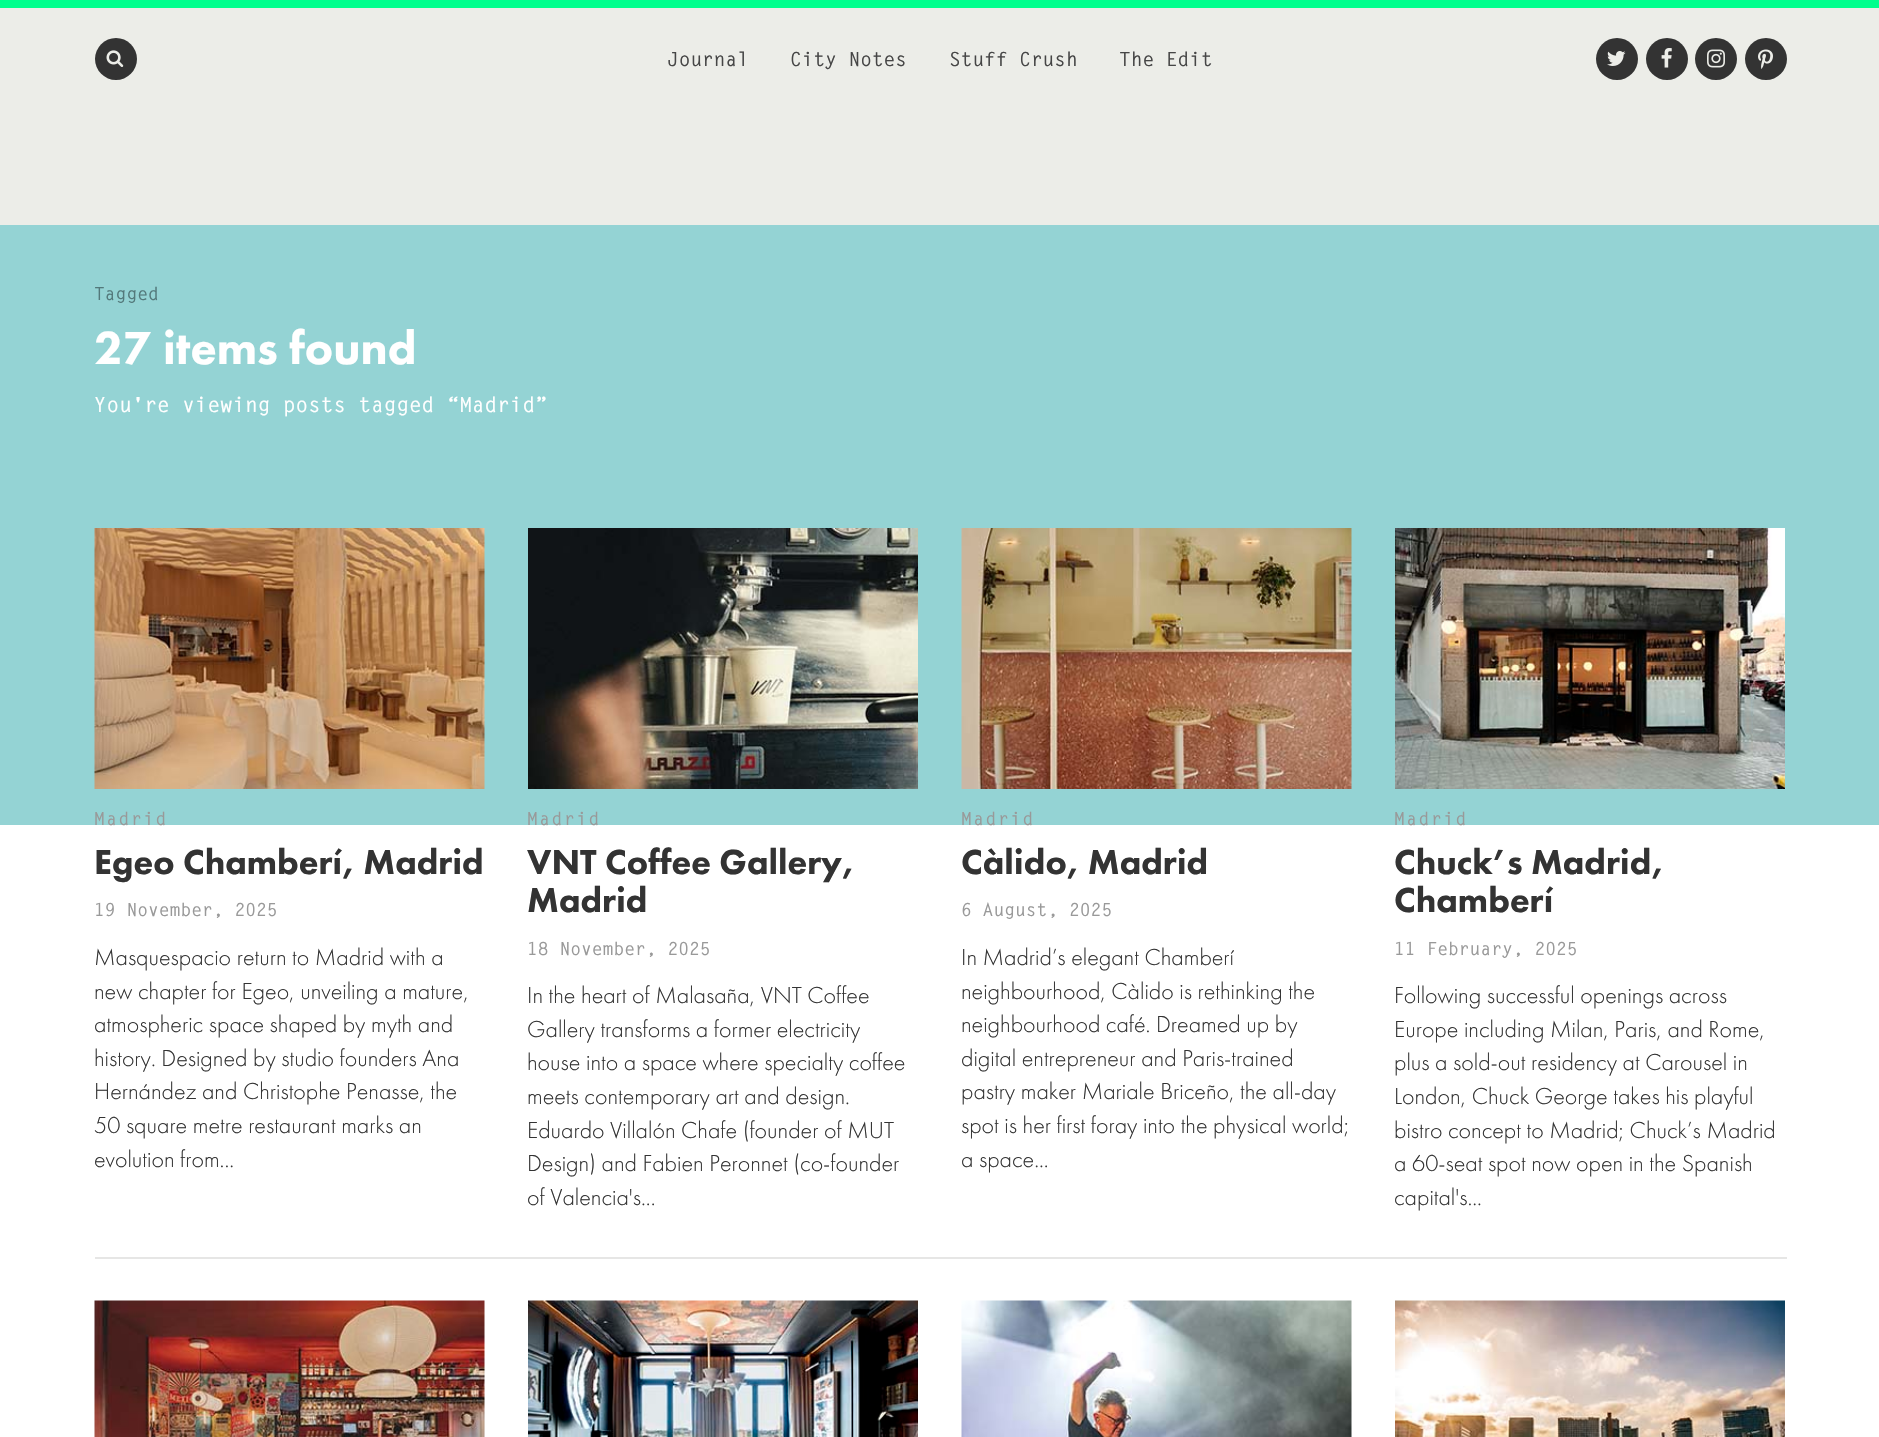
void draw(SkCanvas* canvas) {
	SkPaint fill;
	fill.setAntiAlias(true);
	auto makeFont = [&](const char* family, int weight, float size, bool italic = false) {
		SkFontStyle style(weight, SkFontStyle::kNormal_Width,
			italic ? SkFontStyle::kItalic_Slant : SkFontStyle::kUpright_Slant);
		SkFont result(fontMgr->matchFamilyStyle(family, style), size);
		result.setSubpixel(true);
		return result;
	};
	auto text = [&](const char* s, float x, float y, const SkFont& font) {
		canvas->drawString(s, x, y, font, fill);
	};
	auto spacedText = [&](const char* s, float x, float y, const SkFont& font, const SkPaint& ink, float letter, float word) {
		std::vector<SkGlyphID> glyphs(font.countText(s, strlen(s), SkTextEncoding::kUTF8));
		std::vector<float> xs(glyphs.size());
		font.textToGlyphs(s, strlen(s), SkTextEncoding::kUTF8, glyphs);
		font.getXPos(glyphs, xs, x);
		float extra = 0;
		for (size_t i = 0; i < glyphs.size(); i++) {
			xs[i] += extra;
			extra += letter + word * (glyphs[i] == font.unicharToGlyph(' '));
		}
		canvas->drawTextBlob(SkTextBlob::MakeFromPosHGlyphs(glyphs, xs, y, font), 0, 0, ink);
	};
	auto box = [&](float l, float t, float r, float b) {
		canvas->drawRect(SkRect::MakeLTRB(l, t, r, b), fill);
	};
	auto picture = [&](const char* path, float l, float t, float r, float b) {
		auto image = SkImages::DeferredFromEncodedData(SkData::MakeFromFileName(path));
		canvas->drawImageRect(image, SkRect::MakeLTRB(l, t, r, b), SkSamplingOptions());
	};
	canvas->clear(0xFFFFFFFF);
	fill.setColor(0xFFECEDE8);
	box(0, 8, 1879, 225);
	fill.setColor(0xFF00FF8D);
	box(0, 0, 1879, 8);
	fill.setColor(0xFF333333);
	canvas->drawCircle(116, 59, 21, fill);
	picture("image0.png", 106, 50, 124, 67);
	canvas->drawCircle(1617, 59, 21, fill);
	picture("image1.png", 1607, 51, 1626, 66);
	canvas->drawCircle(1667, 59, 21, fill);
	picture("image2.png", 1661, 48, 1672, 68);
	canvas->drawCircle(1716, 59, 21, fill);
	picture("image3.png", 1707, 49, 1725, 68);
	canvas->drawCircle(1766, 59, 21, fill);
	picture("image4.png", 1758, 49, 1773, 69);
	fill.setColor(0xFF94D3D4);
	box(0, 225, 1879, 825);
	picture("image5.png", 94, 528, 485, 789);
	picture("image6.png", 528, 528, 918, 789);
	picture("image7.png", 961, 528, 1352, 789);
	picture("image8.png", 1395, 528, 1785, 789);
	fill.setColor(0xFFE6E6E5);
	box(95, 1257, 1787, 1259);
	picture("image9.png", 94, 1300, 485, 1437);
	picture("image10.png", 528, 1300, 918, 1437);
	picture("image11.png", 961, 1300, 1352, 1437);
	picture("image12.png", 1395, 1300, 1785, 1437);
	auto font1 = makeFont("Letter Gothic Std", 700, 19.5f);
	fill.setColor(0xFF464646);
	text("Journal", 667, 66, font1);
	text("City Notes", 790, 66, font1);
	text("Stuff Crush", 949, 66, font1);
	text("The Edit", 1119, 66, font1);
	auto font2 = makeFont("Letter Gothic Std", 700, 18);
	fill.setColor(0xFF53797B);
	text("Tagged", 94, 300, font2);
	auto font3 = makeFont("Futura PT", 900, 48);
	fill.setColor(0xFFFFFFFF);
	text("27 items found", 94, 364, font3);
	auto font4 = makeFont("Letter Gothic Std", 700, 21);
	text("You're viewing posts tagged “Madrid”", 94, 412, font4);
	fill.setColor(0xFF999999);
	spacedText("Madrid", 94, 825, font2, fill, 1.5f, 0);
	auto font5 = makeFont("Futura PT", 900, 36);
	fill.setColor(0xFF333333);
	text("Egeo Chamberí, Madrid", 94, 874, font5);
	fill.setColor(0xFF999999);
	text("19 November, 2025", 94, 916, font2);
	auto font6 = makeFont("Futura PT", 300, 24);
	fill.setColor(0xFF333333);
	text("Masquespacio return to Madrid with a", 94, 965, font6);
	text("new chapter for Egeo, unveiling a mature,", 94, 999, font6);
	text("atmospheric space shaped by myth and", 94, 1032, font6);
	text("history. Designed by studio founders Ana", 94, 1066, font6);
	text("Hernández and Christophe Penasse, the", 94, 1099, font6);
	text("50 square metre restaurant marks an", 94, 1133, font6);
	text("evolution from...", 94, 1167, font6);
	fill.setColor(0xFF999999);
	spacedText("Madrid", 527, 825, font2, fill, 1.5f, 0);
	fill.setColor(0xFF333333);
	text("VNT Coffee Gallery,", 527, 874, font5);
	text("Madrid", 527, 912, font5);
	fill.setColor(0xFF999999);
	text("18 November, 2025", 527, 955, font2);
	fill.setColor(0xFF333333);
	text("In the heart of Malasaña, VNT Coffee", 527, 1003, font6);
	text("Gallery transforms a former electricity", 527, 1037, font6);
	text("house into a space where specialty coffee", 527, 1070, font6);
	text("meets contemporary art and design.", 527, 1104, font6);
	text("Eduardo Villalón Chafe (founder of MUT", 527, 1138, font6);
	text("Design) and Fabien Peronnet (co-founder", 527, 1171, font6);
	text("of Valencia's...", 527, 1205, font6);
	fill.setColor(0xFF999999);
	spacedText("Madrid", 961, 825, font2, fill, 1.5f, 0);
	fill.setColor(0xFF333333);
	text("Càlido, Madrid", 961, 874, font5);
	fill.setColor(0xFF999999);
	text("6 August, 2025", 961, 916, font2);
	fill.setColor(0xFF333333);
	text("In Madrid’s elegant Chamberí", 961, 965, font6);
	text("neighbourhood, Càlido is rethinking the", 961, 999, font6);
	text("neighbourhood café. Dreamed up by", 961, 1032, font6);
	text("digital entrepreneur and Paris-trained", 961, 1066, font6);
	text("pastry maker Mariale Briceño, the all-day", 961, 1099, font6);
	text("spot is her first foray into the physical world;", 961, 1133, font6);
	text("a space...", 961, 1167, font6);
	fill.setColor(0xFF999999);
	spacedText("Madrid", 1394, 825, font2, fill, 1.5f, 0);
	fill.setColor(0xFF333333);
	text("Chuck’s Madrid,", 1394, 874, font5);
	text("Chamberí", 1394, 912, font5);
	fill.setColor(0xFF999999);
	text("11 February, 2025", 1394, 955, font2);
	fill.setColor(0xFF333333);
	text("Following successful openings across", 1394, 1003, font6);
	text("Europe including Milan, Paris, and Rome,", 1394, 1037, font6);
	text("plus a sold-out residency at Carousel in", 1394, 1070, font6);
	text("London, Chuck George takes his playful", 1394, 1104, font6);
	text("bistro concept to Madrid; Chuck’s Madrid", 1394, 1138, font6);
	text("a 60-seat spot now open in the Spanish", 1394, 1171, font6);
	text("capital's...", 1394, 1205, font6);
}
